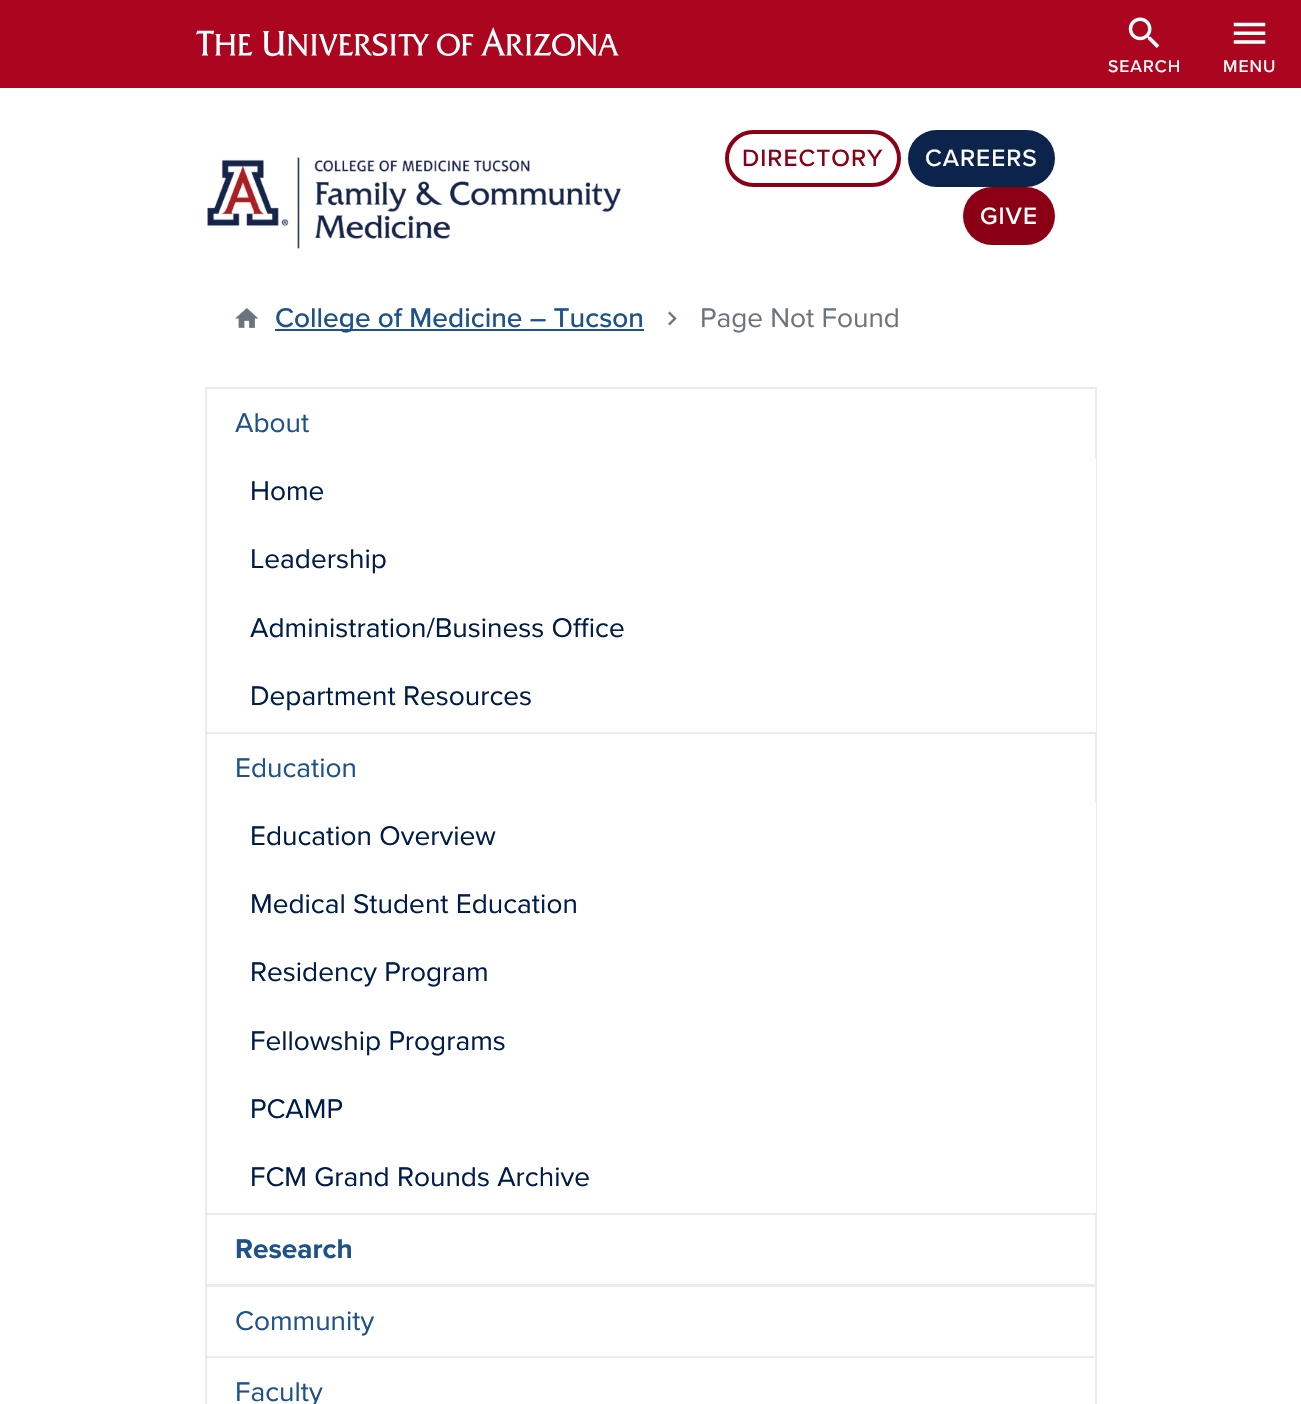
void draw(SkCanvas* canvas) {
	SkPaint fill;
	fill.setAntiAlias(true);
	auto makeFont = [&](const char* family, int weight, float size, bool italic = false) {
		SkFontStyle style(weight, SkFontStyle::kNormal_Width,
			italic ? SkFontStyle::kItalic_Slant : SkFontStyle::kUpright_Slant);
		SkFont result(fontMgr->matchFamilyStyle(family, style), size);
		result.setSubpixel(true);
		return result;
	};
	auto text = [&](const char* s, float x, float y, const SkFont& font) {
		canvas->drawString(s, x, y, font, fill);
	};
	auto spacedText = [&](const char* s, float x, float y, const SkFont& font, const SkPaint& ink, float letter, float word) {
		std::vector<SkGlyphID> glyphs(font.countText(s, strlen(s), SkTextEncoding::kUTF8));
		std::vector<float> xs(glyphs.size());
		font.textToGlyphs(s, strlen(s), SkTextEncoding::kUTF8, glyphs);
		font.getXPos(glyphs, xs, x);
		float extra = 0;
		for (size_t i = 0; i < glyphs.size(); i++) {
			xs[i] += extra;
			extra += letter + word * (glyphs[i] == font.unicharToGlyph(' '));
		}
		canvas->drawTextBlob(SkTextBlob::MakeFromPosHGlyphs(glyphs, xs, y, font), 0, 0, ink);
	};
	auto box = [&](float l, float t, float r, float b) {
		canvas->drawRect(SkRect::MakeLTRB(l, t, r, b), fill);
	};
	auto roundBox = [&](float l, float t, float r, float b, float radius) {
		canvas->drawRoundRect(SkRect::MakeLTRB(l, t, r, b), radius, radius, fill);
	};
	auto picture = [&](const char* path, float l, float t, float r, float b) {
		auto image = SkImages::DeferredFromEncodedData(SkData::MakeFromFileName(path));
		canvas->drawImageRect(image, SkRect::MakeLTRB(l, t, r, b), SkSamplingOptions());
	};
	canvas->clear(0xFFFFFFFF);
	fill.setColor(0xFFAB0520);
	box(0, 0, 1301, 88);
	picture("image0.png", 196, 27, 619, 57);
	picture("image1.png", 1128, 17, 1160, 48);
	picture("image2.png", 1233, 22, 1266, 44);
	picture("image3.png", 207, 157, 621, 249);
	fill.setStyle(SkPaint::kStroke_Style);
	fill.setStrokeWidth(4);
	fill.setColor(0xFF8B0015);
	canvas->drawRoundRect(SkRect::MakeLTRB(727, 132, 899, 185), 26.5f, 26.5f, fill);
	fill.setStyle(SkPaint::kFill_Style);
	fill.setColor(0xFF0C234B);
	roundBox(908, 130, 1055, 187, 28.5f);
	fill.setColor(0xFF8B0015);
	roundBox(963, 187, 1055, 245, 29);
	picture("image4.png", 235, 308, 259, 328);
	fill.setColor(0xFF1E5288);
	box(275, 329, 644, 331);
	picture("image5.png", 668, 311, 677, 326);
	fill.setStyle(SkPaint::kStroke_Style);
	fill.setStrokeWidth(2);
	fill.setColor(0xFFE9ECEF);
	canvas->drawRect(SkRect::MakeLTRB(206, 388, 1096, 732), fill);
	fill.setStyle(SkPaint::kFill_Style);
	fill.setColor(0xFFFFFFFF);
	box(207, 459, 1096, 732);
	fill.setStyle(SkPaint::kStroke_Style);
	fill.setColor(0xFFE9ECEF);
	canvas->drawRect(SkRect::MakeLTRB(206, 733, 1096, 1214), fill);
	fill.setStyle(SkPaint::kFill_Style);
	fill.setColor(0xFFFFFFFF);
	box(1095, 803, 1096, 1213);
	fill.setStyle(SkPaint::kStroke_Style);
	fill.setColor(0xFFE9ECEF);
	canvas->drawRect(SkRect::MakeLTRB(206, 1214, 1096, 1285), fill);
	canvas->drawRect(SkRect::MakeLTRB(206, 1286, 1096, 1357), fill);
	canvas->drawRect(SkRect::MakeLTRB(206, 1357, 1096, 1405), fill);
	auto font1 = makeFont("Proxima Nova", 500, 17.5f);
	fill.setStyle(SkPaint::kFill_Style);
	fill.setColor(0xFFFFFFFF);
	spacedText("SEARCH", 1108, 72, font1, fill, 1, 0);
	spacedText("MENU", 1223, 72, font1, fill, 1, 0);
	auto font2 = makeFont("Proxima Nova", 500, 24.5f);
	fill.setColor(0xFF8B0015);
	spacedText("DIRECTORY", 742, 166, font2, fill, 1, 0);
	fill.setColor(0xFFFFFFFF);
	spacedText("CAREERS", 925, 166, font2, fill, 1, 0);
	spacedText("GIVE", 980, 224, font2, fill, 1, 0);
	auto font3 = makeFont("Proxima Nova", 500, 28);
	fill.setColor(0xFF1E5288);
	text("College of Medicine – Tucson", 275, 327, font3);
	auto font4 = makeFont("Proxima Nova", 400, 28);
	fill.setColor(0xFF6C757D);
	text("Page Not Found", 700, 327, font4);
	fill.setColor(0xFF1E5288);
	text("About", 235, 432, font4);
	fill.setColor(0xFF001C48);
	text("Home", 250, 500, font4);
	text("Leadership", 250, 568, font4);
	text("Administration/Business Office", 250, 637, font4);
	text("Department Resources", 250, 705, font4);
	fill.setColor(0xFF1E5288);
	text("Education", 235, 777, font4);
	fill.setColor(0xFF001C48);
	text("Education Overview", 250, 845, font4);
	text("Medical Student Education", 250, 913, font4);
	text("Residency Program", 250, 981, font4);
	text("Fellowship Programs", 250, 1050, font4);
	text("PCAMP", 250, 1118, font4);
	text("FCM Grand Rounds Archive", 250, 1186, font4);
	auto font5 = makeFont("Proxima Nova", 700, 28);
	fill.setColor(0xFF1E5288);
	text("Research", 235, 1258, font5);
	text("Community", 235, 1330, font4);
	text("Faculty", 235, 1401, font4);
}
